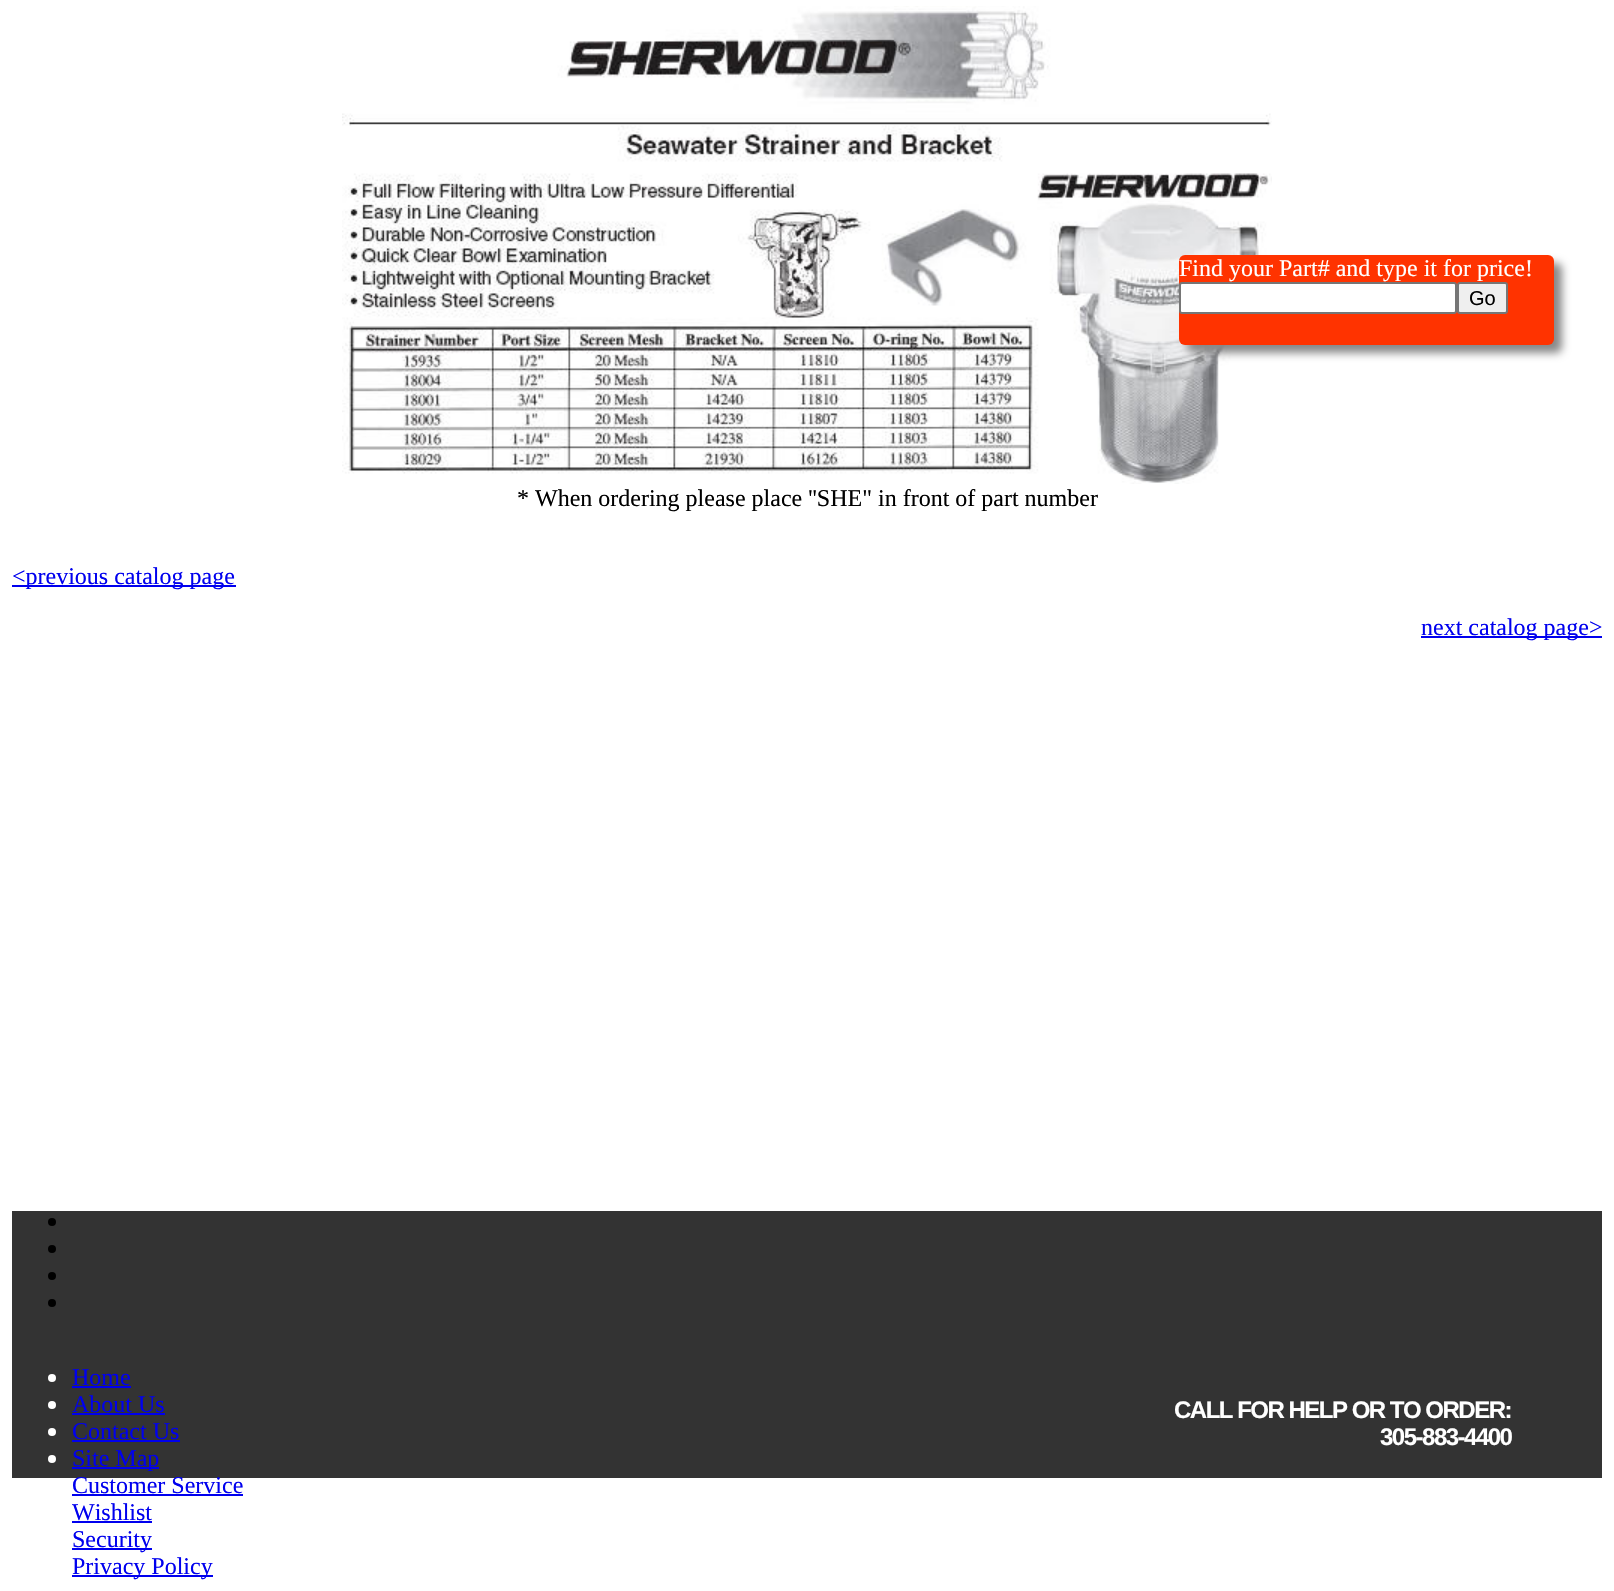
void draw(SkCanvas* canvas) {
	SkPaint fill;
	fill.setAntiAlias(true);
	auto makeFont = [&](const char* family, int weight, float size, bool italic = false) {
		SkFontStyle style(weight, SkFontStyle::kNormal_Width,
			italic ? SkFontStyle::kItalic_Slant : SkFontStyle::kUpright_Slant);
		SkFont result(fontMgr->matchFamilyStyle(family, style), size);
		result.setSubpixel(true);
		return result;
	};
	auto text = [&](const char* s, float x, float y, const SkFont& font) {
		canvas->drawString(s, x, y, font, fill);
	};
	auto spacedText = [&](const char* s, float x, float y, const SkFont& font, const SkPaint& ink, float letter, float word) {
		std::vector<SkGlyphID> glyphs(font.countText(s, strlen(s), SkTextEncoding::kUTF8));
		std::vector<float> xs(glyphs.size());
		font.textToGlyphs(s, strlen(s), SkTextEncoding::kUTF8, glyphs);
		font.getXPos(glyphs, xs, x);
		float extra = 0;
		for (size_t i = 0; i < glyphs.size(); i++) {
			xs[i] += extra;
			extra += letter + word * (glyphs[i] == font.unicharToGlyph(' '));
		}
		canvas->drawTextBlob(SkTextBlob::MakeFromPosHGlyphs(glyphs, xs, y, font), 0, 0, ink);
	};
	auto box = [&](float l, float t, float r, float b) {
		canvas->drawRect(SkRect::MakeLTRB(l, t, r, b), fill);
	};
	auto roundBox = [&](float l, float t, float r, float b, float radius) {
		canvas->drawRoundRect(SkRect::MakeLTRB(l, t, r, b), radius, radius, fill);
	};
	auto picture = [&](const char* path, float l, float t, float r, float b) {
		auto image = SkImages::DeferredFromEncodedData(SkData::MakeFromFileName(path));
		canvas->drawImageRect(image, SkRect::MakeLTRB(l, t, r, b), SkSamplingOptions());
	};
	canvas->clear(0xFFFFFFFF);
	picture("image0.png", 342, 6, 1272, 484);
	fill.setColor(0xFF888888);
	fill.setMaskFilter(SkMaskFilter::MakeBlur(kNormal_SkBlurStyle, 4));
	canvas->drawRoundRect(SkRect::MakeLTRB(1187, 263, 1562, 353), 6, 6, fill);
	fill.setMaskFilter(nullptr);
	fill.setColor(0xFFFF3300);
	roundBox(1179, 255, 1554, 345, 6);
	fill.setColor(0xFFFFFFFF);
	canvas->drawRoundRect(SkRect::MakeLTRB(1180, 283, 1456, 313), 2, 2, fill);
	fill.setStyle(SkPaint::kStroke_Style);
	fill.setStrokeWidth(2);
	fill.setColor(0xFF767676);
	canvas->drawRoundRect(SkRect::MakeLTRB(1180, 283, 1456, 313), 2, 2, fill);
	fill.setStyle(SkPaint::kFill_Style);
	fill.setColor(0xFFEFEFEF);
	canvas->drawRoundRect(SkRect::MakeLTRB(1458, 283, 1507, 313), 2, 2, fill);
	fill.setStyle(SkPaint::kStroke_Style);
	fill.setColor(0xFF767676);
	canvas->drawRoundRect(SkRect::MakeLTRB(1458, 283, 1507, 313), 2, 2, fill);
	fill.setStyle(SkPaint::kFill_Style);
	fill.setColor(0xFF0000EE);
	box(12, 585, 236, 587);
	box(1421, 636, 1602, 638);
	fill.setColor(0xFF333333);
	box(12, 1211, 1602, 1478);
	fill.setColor(0xFF000000);
	canvas->drawCircle(52, 1222, 4, fill);
	canvas->drawCircle(52, 1249, 4, fill);
	canvas->drawCircle(52, 1276, 4, fill);
	canvas->drawCircle(52, 1303, 4, fill);
	fill.setColor(0xFFFFFFFF);
	canvas->drawCircle(52, 1378, 4, fill);
	fill.setColor(0xFF0000EE);
	box(72, 1386, 131, 1388);
	fill.setColor(0xFFFFFFFF);
	canvas->drawCircle(52, 1405, 4, fill);
	fill.setColor(0xFF0000EE);
	box(72, 1413, 165, 1415);
	fill.setColor(0xFFFFFFFF);
	canvas->drawCircle(52, 1432, 4, fill);
	fill.setColor(0xFF0000EE);
	box(72, 1440, 180, 1442);
	fill.setColor(0xFFFFFFFF);
	canvas->drawCircle(52, 1459, 4, fill);
	fill.setColor(0xFF0000EE);
	box(72, 1467, 159, 1469);
	box(72, 1494, 243, 1496);
	box(72, 1521, 152, 1523);
	box(72, 1548, 152, 1550);
	box(72, 1575, 213, 1577);
	auto font1 = makeFont("Liberation Serif", 400, 24);
	fill.setColor(0xFFFFFFFF);
	text("Find your Part# and type it for price!", 1179, 276, font1);
	auto font2 = makeFont("Liberation Sans", 400, 20);
	fill.setColor(0xFF000000);
	text("Go", 1469, 305, font2);
	text("* When ordering please place ''SHE\" in front of part number", 517, 506, font1);
	fill.setColor(0xFF0000EE);
	text("<previous catalog page", 12, 584, font1);
	text("next catalog page>", 1421, 635, font1);
	text("Home", 72, 1385, font1);
	text("About Us", 72, 1412, font1);
	text("Contact Us", 72, 1439, font1);
	text("Site Map", 72, 1466, font1);
	text("Customer Service", 72, 1493, font1);
	text("Wishlist", 72, 1520, font1);
	text("Security", 72, 1547, font1);
	text("Privacy Policy", 72, 1574, font1);
	auto font3 = makeFont("Liberation Sans", 700, 24);
	fill.setColor(0xFFFFFFFF);
	spacedText("CALL FOR HELP OR TO ORDER:", 1174, 1418, font3, fill, -1.5f, 0);
	spacedText("305-883-4400", 1380, 1445, font3, fill, -1.5f, 0);
}
